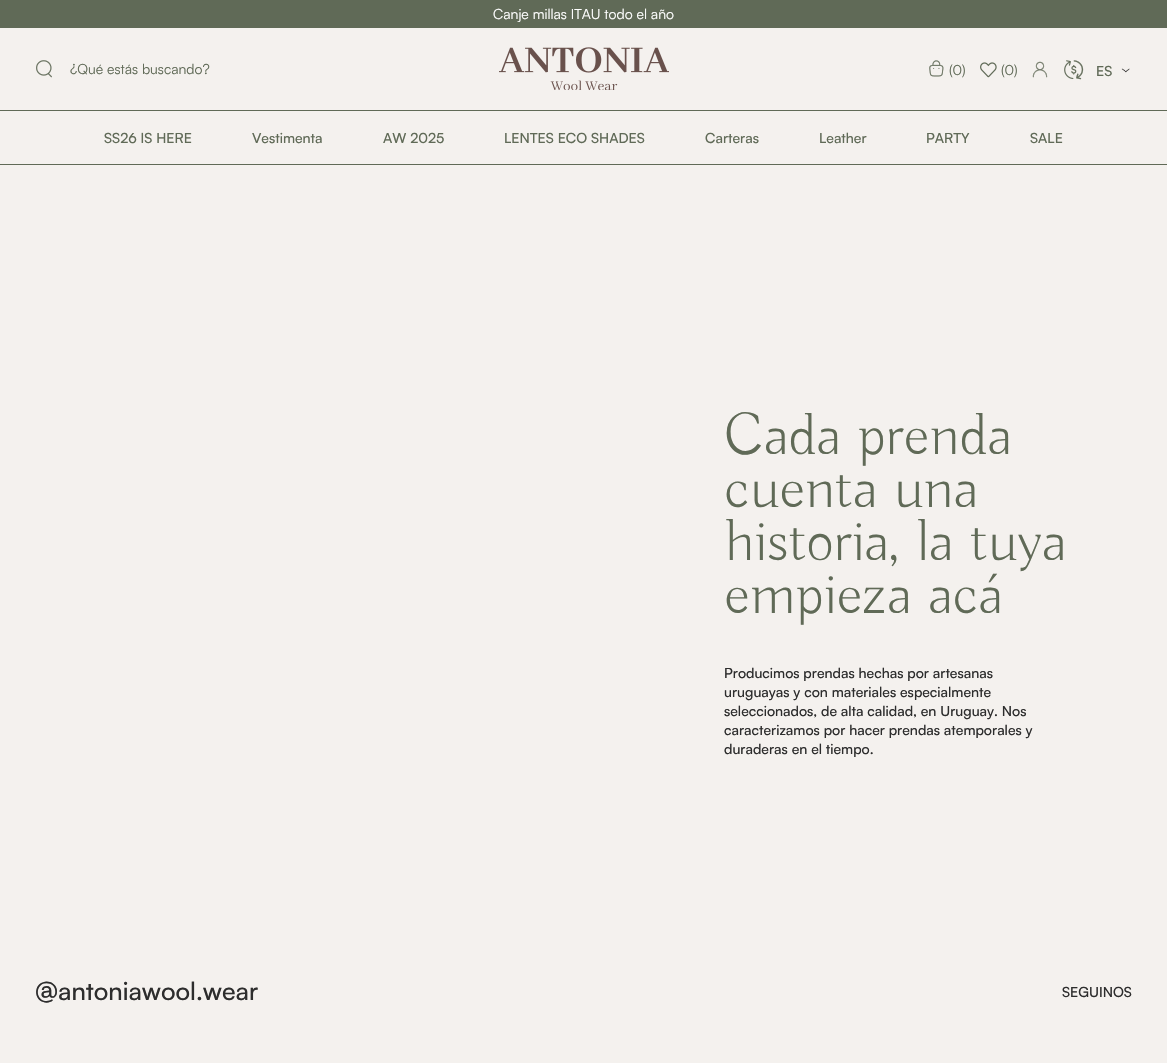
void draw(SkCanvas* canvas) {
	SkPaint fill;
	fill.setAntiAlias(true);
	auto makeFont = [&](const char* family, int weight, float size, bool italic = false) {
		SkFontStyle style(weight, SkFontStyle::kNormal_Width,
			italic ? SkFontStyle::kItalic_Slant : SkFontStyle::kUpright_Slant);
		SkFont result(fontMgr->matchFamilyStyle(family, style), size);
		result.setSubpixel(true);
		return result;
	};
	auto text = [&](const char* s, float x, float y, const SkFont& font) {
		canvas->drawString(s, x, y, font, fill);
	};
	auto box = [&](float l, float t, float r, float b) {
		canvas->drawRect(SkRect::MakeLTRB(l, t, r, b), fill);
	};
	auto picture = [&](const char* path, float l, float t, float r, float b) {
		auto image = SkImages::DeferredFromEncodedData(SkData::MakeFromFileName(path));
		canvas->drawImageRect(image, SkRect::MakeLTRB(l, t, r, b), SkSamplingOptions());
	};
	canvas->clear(0xFFF4F1EE);
	fill.setColor(0xFF606A57);
	box(0, 0, 1167, 28);
	picture("image0.png", 36, 60, 52, 78);
	picture("image1.png", 499, 47, 669, 90);
	picture("image2.png", 929, 60, 944, 77);
	picture("image3.png", 980, 62, 997, 78);
	picture("image4.png", 1032, 61, 1048, 78);
	picture("image5.png", 1064, 60, 1084, 80);
	picture("image6.png", 1121, 68, 1130, 73);
	box(0, 110, 1167, 111);
	box(0, 164, 1167, 165);
	auto font1 = makeFont("Satoshi", 400, 14);
	fill.setColor(0xFFFFFFFF);
	text("Canje millas ITAU todo el año", 493, 19, font1);
	fill.setColor(0xFF606A57);
	text("¿Qué estás buscando?", 70, 74, font1);
	text("(0)", 949, 75, font1);
	text("(0)", 1001, 75, font1);
	auto font2 = makeFont("Satoshi", 500, 14);
	text("ES", 1096, 76, font2);
	text("SS26 IS HERE", 104, 143, font2);
	text("Vestimenta", 252, 143, font2);
	text("AW 2025", 383, 143, font2);
	text("LENTES ECO SHADES", 504, 143, font2);
	text("Carteras", 705, 143, font2);
	text("Leather", 819, 143, font2);
	text("PARTY", 926, 143, font2);
	text("SALE", 1030, 143, font2);
	auto font3 = makeFont("Buda", 300, 60);
	text("Cada prenda", 724, 454, font3);
	text("cuenta una", 724, 507, font3);
	text("historia, la tuya", 724, 560, font3);
	text("empieza acá", 724, 613, font3);
	fill.setColor(0xFF2D2D2D);
	text("Producimos prendas hechas por artesanas", 724, 678, font2);
	text("uruguayas y con materiales especialmente", 724, 697, font2);
	text("seleccionados, de alta calidad, en Uruguay. Nos", 724, 716, font2);
	text("caracterizamos por hacer prendas atemporales y", 724, 735, font2);
	text("duraderas en el tiempo.", 724, 754, font2);
	auto font4 = makeFont("Satoshi", 500, 25);
	text("@antoniawool.wear", 35, 1000, font4);
	text("SEGUINOS", 1062, 997, font2);
}
